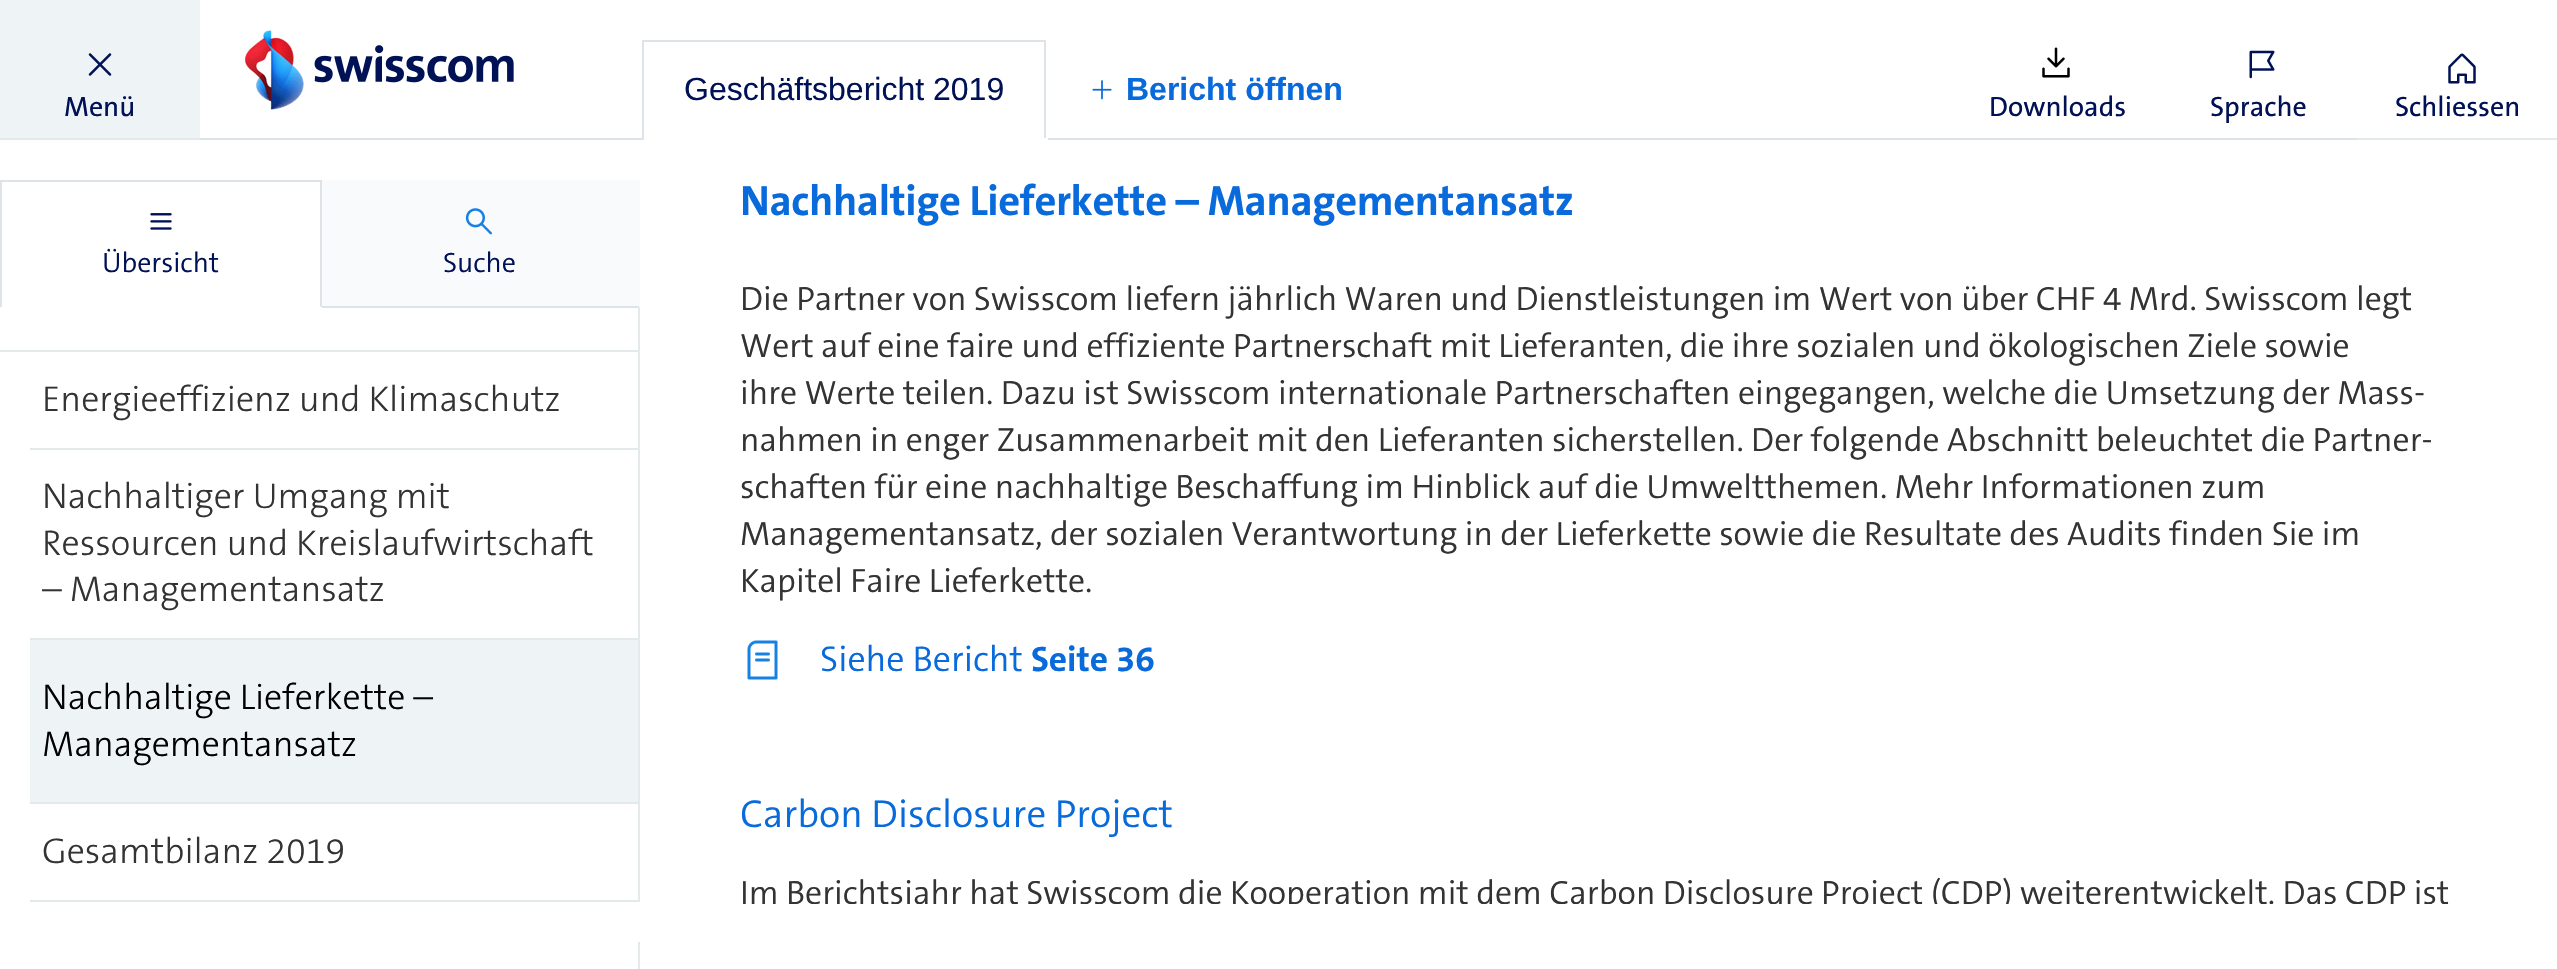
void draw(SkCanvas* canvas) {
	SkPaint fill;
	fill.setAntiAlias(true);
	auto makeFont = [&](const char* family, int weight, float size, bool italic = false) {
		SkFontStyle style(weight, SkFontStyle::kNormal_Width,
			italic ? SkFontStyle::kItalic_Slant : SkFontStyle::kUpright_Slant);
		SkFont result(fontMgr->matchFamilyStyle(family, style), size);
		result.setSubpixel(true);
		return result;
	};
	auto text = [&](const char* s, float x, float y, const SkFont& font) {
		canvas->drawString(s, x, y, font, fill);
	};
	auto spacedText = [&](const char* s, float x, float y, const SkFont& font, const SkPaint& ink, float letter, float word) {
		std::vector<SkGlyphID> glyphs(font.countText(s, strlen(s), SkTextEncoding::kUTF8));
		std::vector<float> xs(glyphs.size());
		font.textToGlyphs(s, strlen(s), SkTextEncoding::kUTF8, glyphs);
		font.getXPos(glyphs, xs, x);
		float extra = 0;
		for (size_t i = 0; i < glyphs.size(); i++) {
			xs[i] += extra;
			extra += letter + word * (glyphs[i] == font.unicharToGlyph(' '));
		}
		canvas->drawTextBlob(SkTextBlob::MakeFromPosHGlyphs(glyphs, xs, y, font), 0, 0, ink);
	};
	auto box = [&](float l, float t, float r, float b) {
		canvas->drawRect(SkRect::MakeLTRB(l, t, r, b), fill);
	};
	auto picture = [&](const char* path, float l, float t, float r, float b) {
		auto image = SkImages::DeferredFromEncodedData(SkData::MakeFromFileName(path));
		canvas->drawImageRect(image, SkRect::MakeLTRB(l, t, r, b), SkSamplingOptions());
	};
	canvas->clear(0xFFFFFFFF);
	fill.setColor(0xFFDDE3E7);
	box(200, 138, 2358, 140);
	box(642, 40, 1046, 42);
	box(1044, 40, 1046, 140);
	fill.setColor(0xFFFFFFFF);
	box(642, 138, 1046, 140);
	fill.setColor(0xFFDDE3E7);
	box(642, 40, 644, 140);
	fill.setColor(0xFFFFFFFF);
	box(1046, 138, 1048, 140);
	picture("image0.png", 1092, 80, 1112, 100);
	fill.setColor(0xFFEEF3F6);
	box(0, 0, 200, 138);
	fill.setColor(0xFFE4E9EC);
	box(0, 138, 200, 140);
	picture("image1.png", 88, 53, 112, 76);
	picture("image2.png", 245, 30, 514, 110);
	picture("image3.png", 2042, 47, 2070, 78);
	picture("image4.png", 2249, 50, 2275, 79);
	box(2358, 138, 2557, 140);
	picture("image5.png", 2448, 53, 2476, 84);
	fill.setColor(0xFFDDE3E7);
	box(0, 180, 322, 182);
	canvas->drawPath(SkPathBuilder().moveTo(322, 180).lineTo(322, 308).lineTo(320, 306).lineTo(320, 182).close().detach(), fill);
	canvas->drawPath(SkPathBuilder().moveTo(0, 308).lineTo(0, 180).lineTo(2, 182).lineTo(2, 306).close().detach(), fill);
	picture("image6.png", 150, 213, 172, 230);
	fill.setColor(0xFFF8FAFB);
	box(322, 180, 640, 308);
	fill.setColor(0xFFDDE3E7);
	canvas->drawPath(SkPathBuilder().moveTo(640, 308).lineTo(322, 308).lineTo(322, 306).lineTo(638, 306).close().detach(), fill);
	picture("image7.png", 465, 208, 492, 235);
	fill.setColor(0xFFE4E9EC);
	box(638, 308, 640, 902);
	box(0, 350, 638, 352);
	box(30, 448, 638, 450);
	box(30, 638, 638, 640);
	fill.setColor(0xFFEEF3F6);
	box(30, 640, 638, 802);
	fill.setColor(0xFFE4E9EC);
	box(30, 802, 638, 804);
	box(30, 900, 638, 902);
	box(638, 942, 640, 969);
	picture("image8.png", 747, 640, 778, 680);
	auto font1 = makeFont("Liberation Sans", 400, 32);
	fill.setColor(0xFF001155);
	text("Geschäftsbericht 2019", 684, 100, font1);
	auto font2 = makeFont("Liberation Sans", 700, 32);
	fill.setColor(0xFF086ADB);
	text("Bericht öffnen", 1126, 100, font2);
	auto font3 = makeFont("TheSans", 500, 28);
	fill.setColor(0xFF001155);
	text("Menü", 64, 116, font3);
	text("Downloads", 1989, 116, font3);
	text("Sprache", 2210, 116, font3);
	text("Schliessen", 2395, 116, font3);
	auto font4 = makeFont("TheSans", 300, 28);
	text("Übersicht", 102, 272, font4);
	text("Suche", 443, 272, font4);
	auto font5 = makeFont("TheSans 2", 300, 36);
	fill.setColor(0xFF333333);
	text("Energieeffizienz und Klimaschutz", 42, 411, font5);
	text("Nachhaltiger Umgang mit", 42, 508, font5);
	text("Ressourcen und Kreislaufwirtschaft", 42, 555, font5);
	text("– Managementansatz", 42, 601, font5);
	fill.setColor(0xFF000000);
	text("Nachhaltige Lieferkette –", 42, 709, font5);
	text("Managementansatz", 42, 756, font5);
	fill.setColor(0xFF333333);
	text("Gesamtbilanz 2019", 42, 863, font5);
	auto font6 = makeFont("TheSans", 700, 42.6f);
	fill.setColor(0xFF086ADB);
	spacedText("Nachhaltige Lieferkette – Managementansatz", 740, 215, font6, fill, -0.4f, 0);
	auto font7 = makeFont("TheSans", 300, 33.77f);
	fill.setColor(0xFF333333);
	text("Die Partner von Swisscom liefern jährlich Waren und Dienstleistungen im Wert von über CHF 4 Mrd. Swisscom legt", 740, 310, font7);
	text("Wert auf eine faire und effiziente Partnerschaft mit Lieferanten, die ihre sozialen und ökologischen Ziele sowie", 740, 357, font7);
	text("ihre Werte teilen. Dazu ist Swisscom internationale Partnerschaften eingegangen, welche die Umsetzung der Mass-", 740, 404, font7);
	text("nahmen in enger Zusammenarbeit mit den Lieferanten sicherstellen. Der folgende Abschnitt beleuchtet die Partner-", 740, 451, font7);
	text("schaften für eine nachhaltige Beschaffung im Hinblick auf die Umweltthemen. Mehr Informationen zum", 740, 498, font7);
	text("Managementansatz, der sozialen Verantwortung in der Lieferkette sowie die Resultate des Audits finden Sie im", 740, 545, font7);
	text("Kapitel Faire Lieferkette.", 740, 592, font7);
	auto font8 = makeFont("TheSans", 300, 36);
	fill.setColor(0xFF086ADB);
	text("Siehe Bericht", 820, 671, font8);
	auto font9 = makeFont("TheSans", 700, 35.5f);
	text("Seite 36", 1031, 671, font9);
	auto font10 = makeFont("TheSans", 300, 39.1f);
	text("Carbon Disclosure Project", 740, 827, font10);
	canvas->save();
	canvas->clipRect(SkRect::MakeLTRB(640, 74, 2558, 904));
	fill.setColor(0xFF333333);
	text("Im Berichtsjahr hat Swisscom die Kooperation mit dem Carbon Disclosure Project (CDP) weiterentwickelt. Das CDP ist", 740, 904, font7);
	canvas->restore();
}
